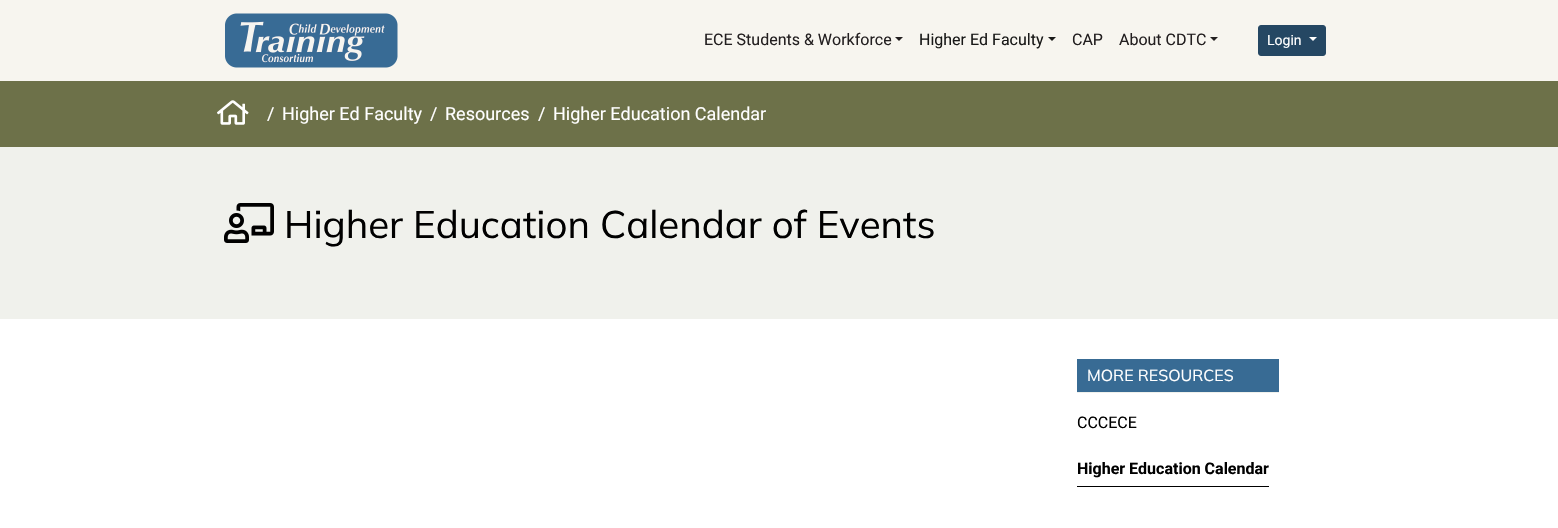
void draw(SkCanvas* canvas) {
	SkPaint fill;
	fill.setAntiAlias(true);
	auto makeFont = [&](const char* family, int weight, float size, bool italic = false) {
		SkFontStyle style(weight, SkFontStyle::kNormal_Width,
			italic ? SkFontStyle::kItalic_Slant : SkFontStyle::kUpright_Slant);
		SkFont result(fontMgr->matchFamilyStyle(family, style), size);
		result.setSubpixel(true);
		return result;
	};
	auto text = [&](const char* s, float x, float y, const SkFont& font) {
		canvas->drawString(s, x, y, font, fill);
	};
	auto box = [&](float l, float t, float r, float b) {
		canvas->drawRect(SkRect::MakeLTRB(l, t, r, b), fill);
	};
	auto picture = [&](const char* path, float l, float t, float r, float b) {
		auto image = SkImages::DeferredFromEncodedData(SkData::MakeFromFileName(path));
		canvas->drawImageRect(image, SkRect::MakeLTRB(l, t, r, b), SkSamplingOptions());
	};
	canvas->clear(0xFFFFFFFF);
	fill.setColor(0xFFF7F5EF);
	box(0, 0, 1558, 81);
	picture("image0.png", 225, 13, 398, 68);
	fill.setColor(0xFF231F20);
	canvas->drawPath(SkPathBuilder().moveTo(895, 37).lineTo(903, 37).lineTo(899, 41).close().detach(), fill);
	fill.setColor(0xFF191918);
	canvas->drawPath(SkPathBuilder().moveTo(1048, 37).lineTo(1056, 37).lineTo(1052, 41).close().detach(), fill);
	fill.setColor(0xFF231F20);
	canvas->drawPath(SkPathBuilder().moveTo(1210, 37).lineTo(1218, 37).lineTo(1214, 41).close().detach(), fill);
	fill.setColor(0xFF254763);
	canvas->drawRoundRect(SkRect::MakeLTRB(1258.5f, 25.5f, 1325.5f, 55.5f), 2.5f, 2.5f, fill);
	fill.setStyle(SkPaint::kStroke_Style);
	fill.setStrokeWidth(1);
	canvas->drawRoundRect(SkRect::MakeLTRB(1258.5f, 25.5f, 1325.5f, 55.5f), 2.5f, 2.5f, fill);
	fill.setStyle(SkPaint::kFill_Style);
	fill.setColor(0xFFFFFFFF);
	canvas->drawPath(SkPathBuilder().moveTo(1309, 37).lineTo(1317, 37).lineTo(1313, 41).close().detach(), fill);
	fill.setColor(0xFF6D7149);
	box(0, 81, 1558, 147);
	picture("image1.png", 217, 100, 249, 125);
	fill.setColor(0xFFF0F1EC);
	box(0, 147, 1558, 319);
	picture("image2.png", 224, 203, 274, 243);
	fill.setColor(0xFF386B94);
	box(1077, 359, 1279, 392);
	fill.setColor(0xFFF0F1EC);
	box(1077, 392, 1279, 393);
	fill.setColor(0xFF000000);
	box(1077, 486, 1269, 487);
	auto font1 = makeFont("Roboto", 400, 16);
	fill.setColor(0xFF231F20);
	text("ECE Students & Workforce", 704, 45, font1);
	fill.setColor(0xFF191918);
	text("Higher Ed Faculty", 919, 45, font1);
	fill.setColor(0xFF231F20);
	text("CAP", 1072, 45, font1);
	text("About CDTC", 1119, 45, font1);
	auto font2 = makeFont("Roboto", 400, 14);
	fill.setColor(0xFFFFFFFF);
	text("Login", 1267, 45, font2);
	auto font3 = makeFont("Roboto", 400, 18);
	text("/", 267, 120, font3);
	text("Higher Ed Faculty", 282, 120, font3);
	text("/", 430, 120, font3);
	text("Resources", 445, 120, font3);
	text("/", 538, 120, font3);
	text("Higher Education Calendar", 553, 120, font3);
	auto font4 = makeFont("Mulish", 400, 38.4f);
	fill.setColor(0xFF000000);
	text("Higher Education Calendar of Events", 284, 238, font4);
	auto font5 = makeFont("Mulish", 400, 16);
	fill.setColor(0xFFFFFFFF);
	text("MORE RESOURCES", 1087, 381, font5);
	fill.setColor(0xFF000000);
	text("CCCECE", 1077, 428, font1);
	auto font6 = makeFont("Roboto", 700, 16);
	text("Higher Education Calendar", 1077, 474, font6);
}
